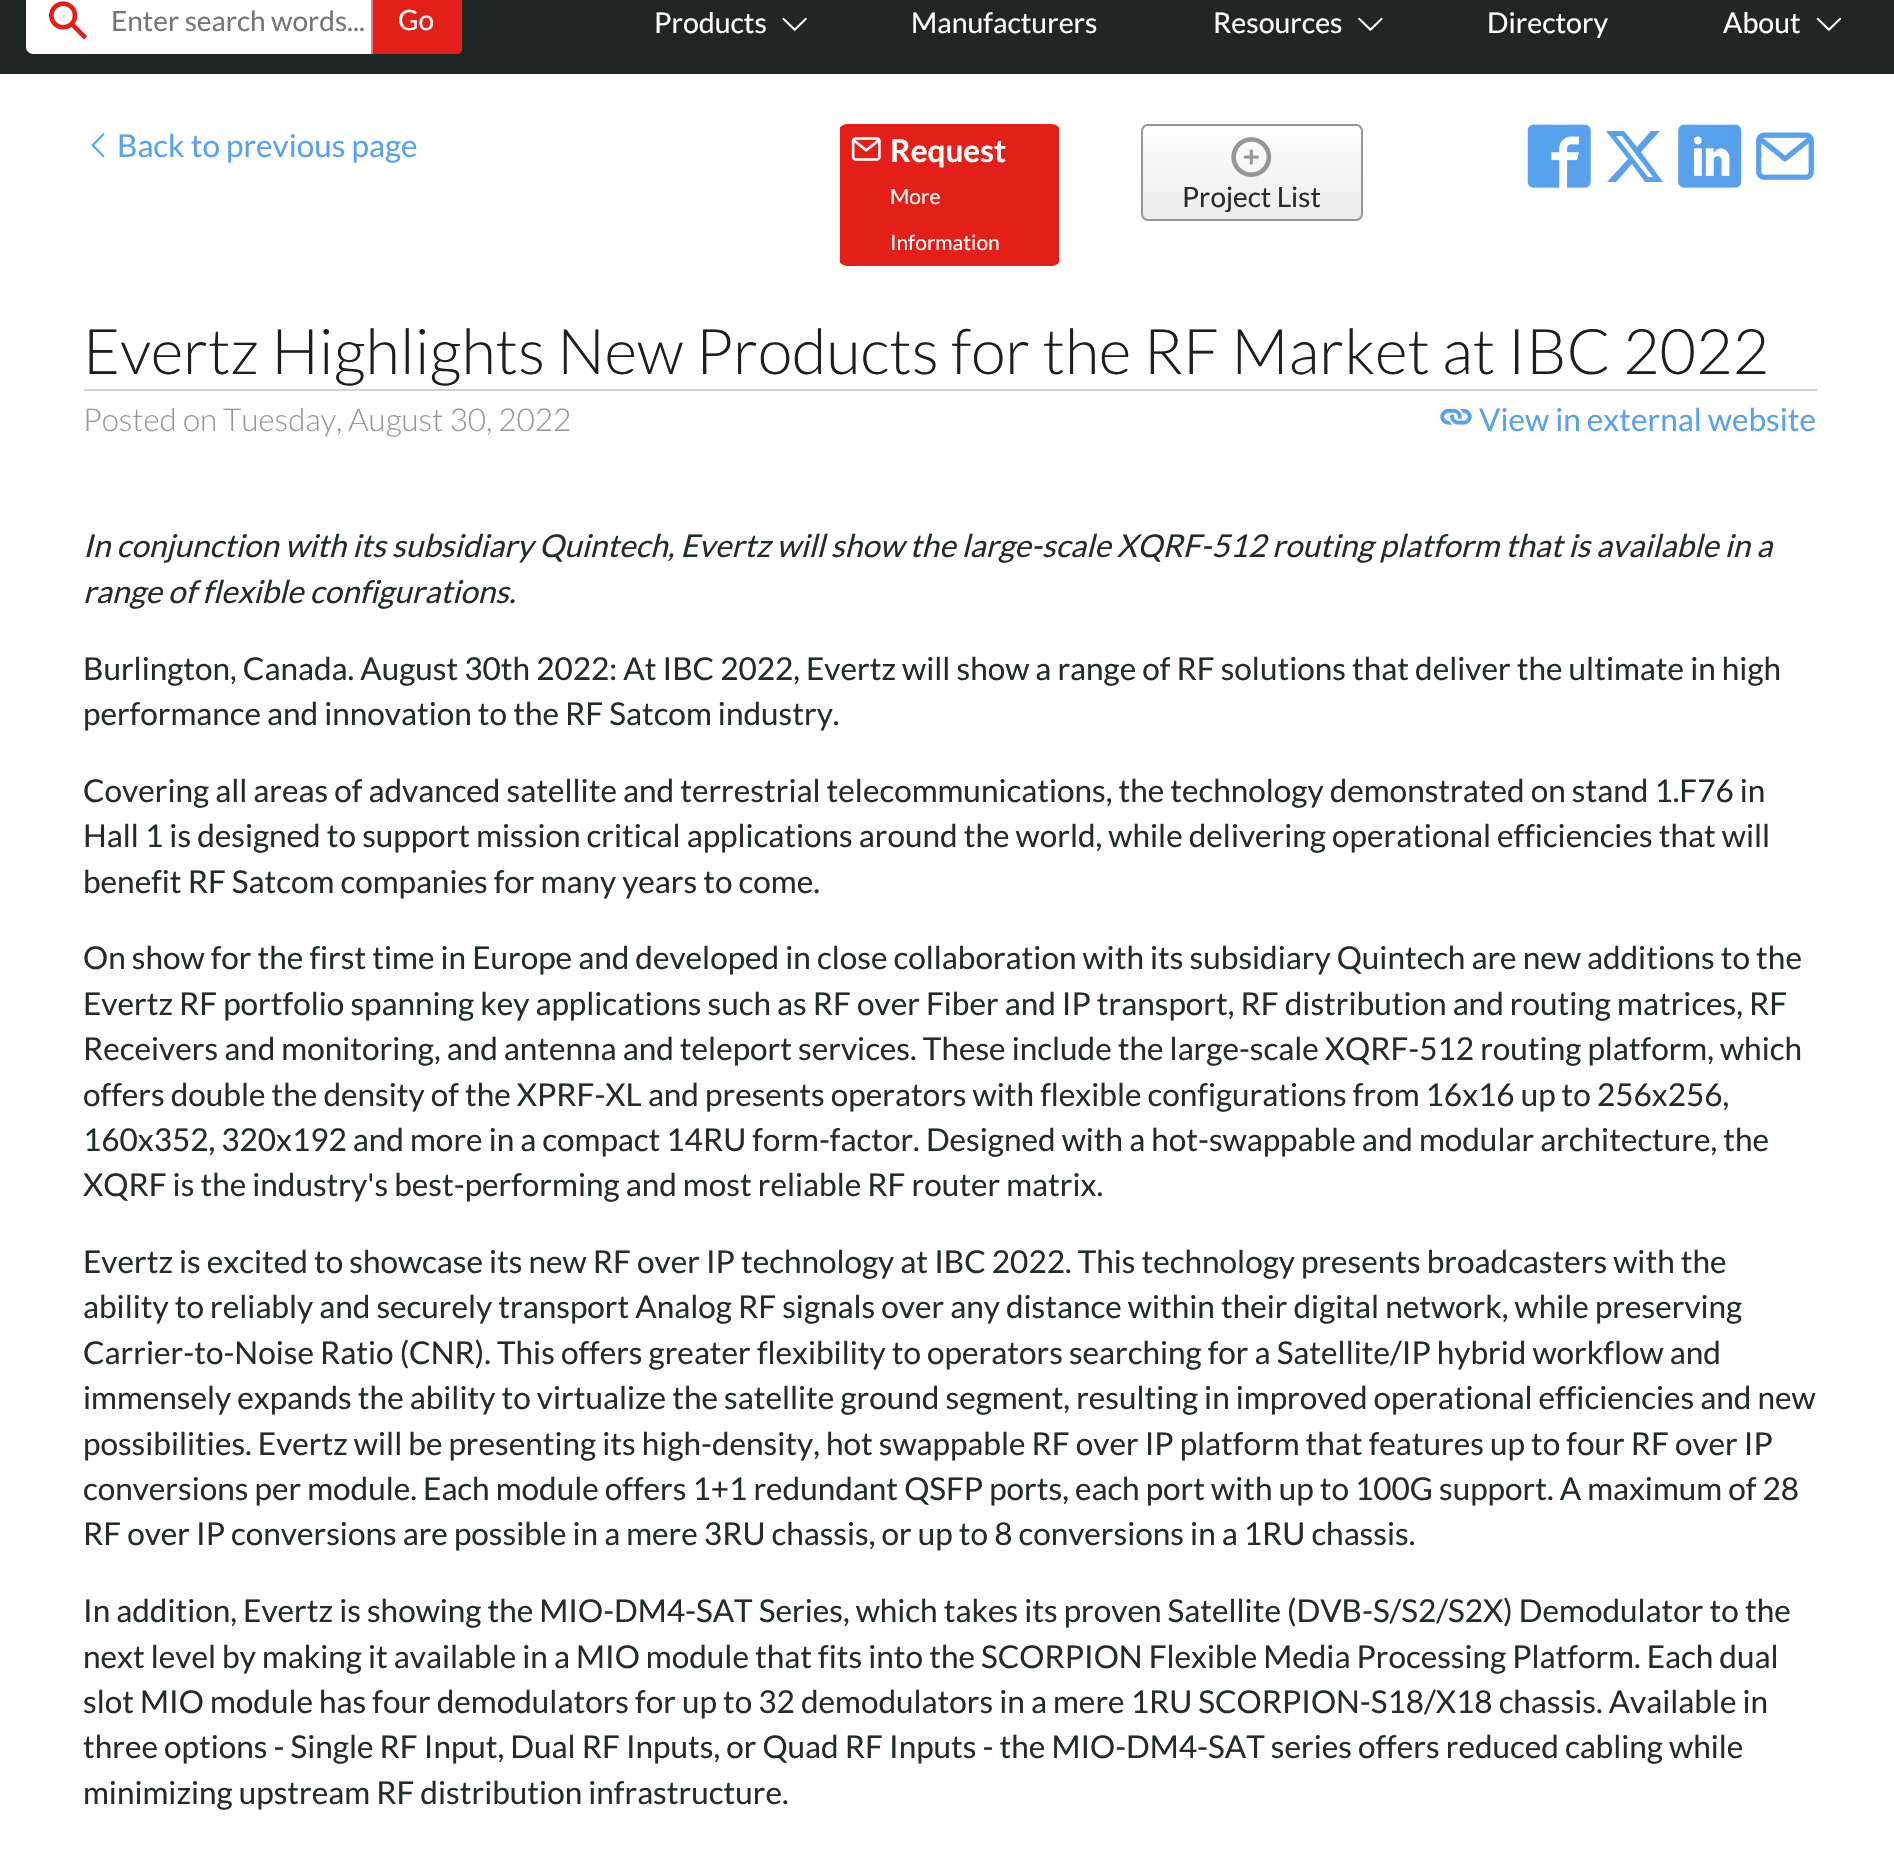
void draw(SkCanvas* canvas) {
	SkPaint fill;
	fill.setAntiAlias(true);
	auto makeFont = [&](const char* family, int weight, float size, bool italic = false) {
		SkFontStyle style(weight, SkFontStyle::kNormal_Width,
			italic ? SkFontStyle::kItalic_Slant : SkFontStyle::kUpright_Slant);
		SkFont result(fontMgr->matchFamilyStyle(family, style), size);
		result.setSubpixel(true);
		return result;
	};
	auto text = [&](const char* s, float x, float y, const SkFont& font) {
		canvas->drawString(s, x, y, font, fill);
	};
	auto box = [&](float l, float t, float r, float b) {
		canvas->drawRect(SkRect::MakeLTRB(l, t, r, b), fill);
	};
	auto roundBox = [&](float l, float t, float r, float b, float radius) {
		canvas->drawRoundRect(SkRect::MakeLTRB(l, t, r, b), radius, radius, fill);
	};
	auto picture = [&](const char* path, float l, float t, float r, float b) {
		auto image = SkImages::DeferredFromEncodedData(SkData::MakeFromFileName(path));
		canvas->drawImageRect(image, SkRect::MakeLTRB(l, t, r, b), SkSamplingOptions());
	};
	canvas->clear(0xFF1E2628);
	fill.setColor(0xFFFFFFFF);
	roundBox(26, -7, 462, 54, 7);
	picture("image0.png", 49, 1, 87, 40);
	fill.setColor(0xFFE22019);
	canvas->drawPath(SkPathBuilder().moveTo(371, -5).lineTo(457, -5).cubicTo(460, -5, 462, -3, 462, 0).lineTo(462, 49).cubicTo(462, 52, 460, 54, 457, 54).lineTo(371, 54).close().detach(), fill);
	fill.setColor(0xFFEE7975);
	box(371, 0, 373, 54);
	picture("image1.png", 782, 17, 807, 31);
	picture("image2.png", 1358, 17, 1383, 31);
	picture("image3.png", 1816, 17, 1842, 31);
	fill.setColor(0xFFFFFFFF);
	box(0, 74, 1894, 1850);
	picture("image4.png", 91, 133, 105, 158);
	fill.setColor(0xFFE22019);
	roundBox(838, 124, 1061, 266, 9);
	fill.setColor(0xFFFFFFFF);
	box(1059, 128, 1061, 263);
	box(838, 128, 840, 263);
	picture("image5.png", 851, 137, 881, 161);
	canvas->save();
	canvas->clipPath(SkPathBuilder().moveTo(1148, 124).lineTo(1356, 124).cubicTo(1360, 124, 1363, 127, 1363, 131).lineTo(1363, 214).cubicTo(1363, 218, 1360, 221, 1356, 221).lineTo(1148, 221).cubicTo(1144, 221, 1141, 218, 1141, 214).lineTo(1141, 131).cubicTo(1141, 127, 1144, 124, 1148, 124).close().detach(), true);
	{
		const SkColor colors[] = {0xFFFFFFFF, 0xFFECECEC};
		const float stops[] = {0, 1};
		const SkPoint ends[] = {{1252, 126}, {1252, 219}};
		fill.setShader(SkGradientShader::MakeLinear(ends, colors, stops, 2, SkTileMode::kClamp));
		fill.setAlpha(255);
	}
	box(1141, 126, 1363, 219);
	canvas->restore();
	fill.setStyle(SkPaint::kStroke_Style);
	fill.setStrokeWidth(2);
	fill.setShader(nullptr);
	fill.setColor(0xFF969696);
	canvas->drawRoundRect(SkRect::MakeLTRB(1142, 125, 1362, 220), 6, 6, fill);
	picture("image6.png", 1231, 137, 1272, 177);
	picture("image7.png", 1527, 124, 1591, 188);
	fill.setStyle(SkPaint::kFill_Style);
	fill.setColor(0xFF58A1EC);
	canvas->drawPath(SkPathBuilder().moveTo(1651, 131).lineTo(1660, 131).lineTo(1641, 152).lineTo(1663, 182).lineTo(1645, 182).lineTo(1632, 164).lineTo(1616, 182).lineTo(1607, 182).lineTo(1628, 159).lineTo(1606, 131).lineTo(1624, 131).lineTo(1637, 147).close().moveTo(1648, 177).lineTo(1653, 177).lineTo(1622, 136).lineTo(1616, 136).close().detach(), fill);
	picture("image8.png", 1678, 124, 1742, 188);
	picture("image9.png", 1756, 132, 1814, 180);
	fill.setColor(0xFFD2D2D2);
	box(84, 389, 1817, 391);
	picture("image10.png", 1440, 408, 1472, 425);
	auto font1 = makeFont("Lato", 400, 28);
	fill.setColor(0xFF757575);
	text("Enter search words...", 111, 31, font1);
	fill.setColor(0xFFFFFFFF);
	text("Go", 398, 30, font1);
	auto font2 = makeFont("Lato", 400, 28.5f);
	text("Products", 654, 33, font2);
	text("Manufacturers", 911, 33, font2);
	text("Resources", 1213, 33, font2);
	text("Directory", 1487, 33, font2);
	text("About", 1723, 33, font2);
	auto font3 = makeFont("Lato", 400, 31.5f);
	fill.setColor(0xFF58A1EC);
	text("Back to previous page", 117, 157, font3);
	auto font4 = makeFont("Lato", 700, 31.5f);
	fill.setColor(0xFFFFFFFF);
	text("Request", 890, 162, font4);
	auto font5 = makeFont("Lato", 400, 21);
	text("More", 890, 204, font5);
	text("Information", 890, 250, font5);
	fill.setColor(0xFF2A2A2A);
	text("Project List", 1182, 207, font1);
	auto font6 = makeFont("Lato", 300, 63);
	fill.setColor(0xFF1E1E1E);
	text("Evertz Highlights New Products for the RF Market at IBC 2022", 83, 374, font6);
	auto font7 = makeFont("Lato", 300, 31.5f);
	fill.setColor(0xFF969696);
	text("Posted on Tuesday, August 30, 2022", 83, 431, font7);
	fill.setColor(0xFF58A1EC);
	text("View in external website", 1479, 431, font3);
	auto font8 = makeFont("Lato", 400, 31.5f, true);
	fill.setColor(0xFF212C2E);
	text("In conjunction with its subsidiary Quintech, Evertz will show the large-scale XQRF-512 routing platform that is available in a", 83, 557, font8);
	text("range of flexible configurations.", 83, 603, font8);
	text("Burlington, Canada. August 30th 2022: At IBC 2022, Evertz will show a range of RF solutions that deliver the ultimate in high", 83, 680, font3);
	text("performance and innovation to the RF Satcom industry.", 83, 725, font3);
	text("Covering all areas of advanced satellite and terrestrial telecommunications, the technology demonstrated on stand 1.F76 in", 83, 802, font3);
	text("Hall 1 is designed to support mission critical applications around the world, while delivering operational efficiencies that will", 83, 847, font3);
	text("benefit RF Satcom companies for many years to come.", 83, 893, font3);
	text("On show for the first time in Europe and developed in close collaboration with its subsidiary Quintech are new additions to the", 83, 969, font3);
	text("Evertz RF portfolio spanning key applications such as RF over Fiber and IP transport, RF distribution and routing matrices, RF", 83, 1015, font3);
	text("Receivers and monitoring, and antenna and teleport services. These include the large-scale XQRF-512 routing platform, which", 83, 1060, font3);
	text("offers double the density of the XPRF-XL and presents operators with flexible configurations from 16x16 up to 256x256,", 83, 1106, font3);
	text("160x352, 320x192 and more in a compact 14RU form-factor. Designed with a hot-swappable and modular architecture, the", 83, 1151, font3);
	text("XQRF is the industry's best-performing and most reliable RF router matrix.", 83, 1196, font3);
	text("Evertz is excited to showcase its new RF over IP technology at IBC 2022. This technology presents broadcasters with the", 83, 1273, font3);
	text("ability to reliably and securely transport Analog RF signals over any distance within their digital network, while preserving", 83, 1318, font3);
	text("Carrier-to-Noise Ratio (CNR). This offers greater flexibility to operators searching for a Satellite/IP hybrid workflow and", 83, 1364, font3);
	text("immensely expands the ability to virtualize the satellite ground segment, resulting in improved operational efficiencies and new", 83, 1409, font3);
	text("possibilities. Evertz will be presenting its high-density, hot swappable RF over IP platform that features up to four RF over IP", 83, 1455, font3);
	text("conversions per module. Each module offers 1+1 redundant QSFP ports, each port with up to 100G support. A maximum of 28", 83, 1500, font3);
	text("RF over IP conversions are possible in a mere 3RU chassis, or up to 8 conversions in a 1RU chassis.", 83, 1545, font3);
	text("In addition, Evertz is showing the MIO-DM4-SAT Series, which takes its proven Satellite (DVB-S/S2/S2X) Demodulator to the", 83, 1622, font3);
	text("next level by making it available in a MIO module that fits into the SCORPION Flexible Media Processing Platform. Each dual", 83, 1668, font3);
	text("slot MIO module has four demodulators for up to 32 demodulators in a mere 1RU SCORPION-S18/X18 chassis. Available in", 83, 1713, font3);
	text("three options - Single RF Input, Dual RF Inputs, or Quad RF Inputs - the MIO-DM4-SAT series offers reduced cabling while", 83, 1758, font3);
	text("minimizing upstream RF distribution infrastructure.", 83, 1804, font3);
}
